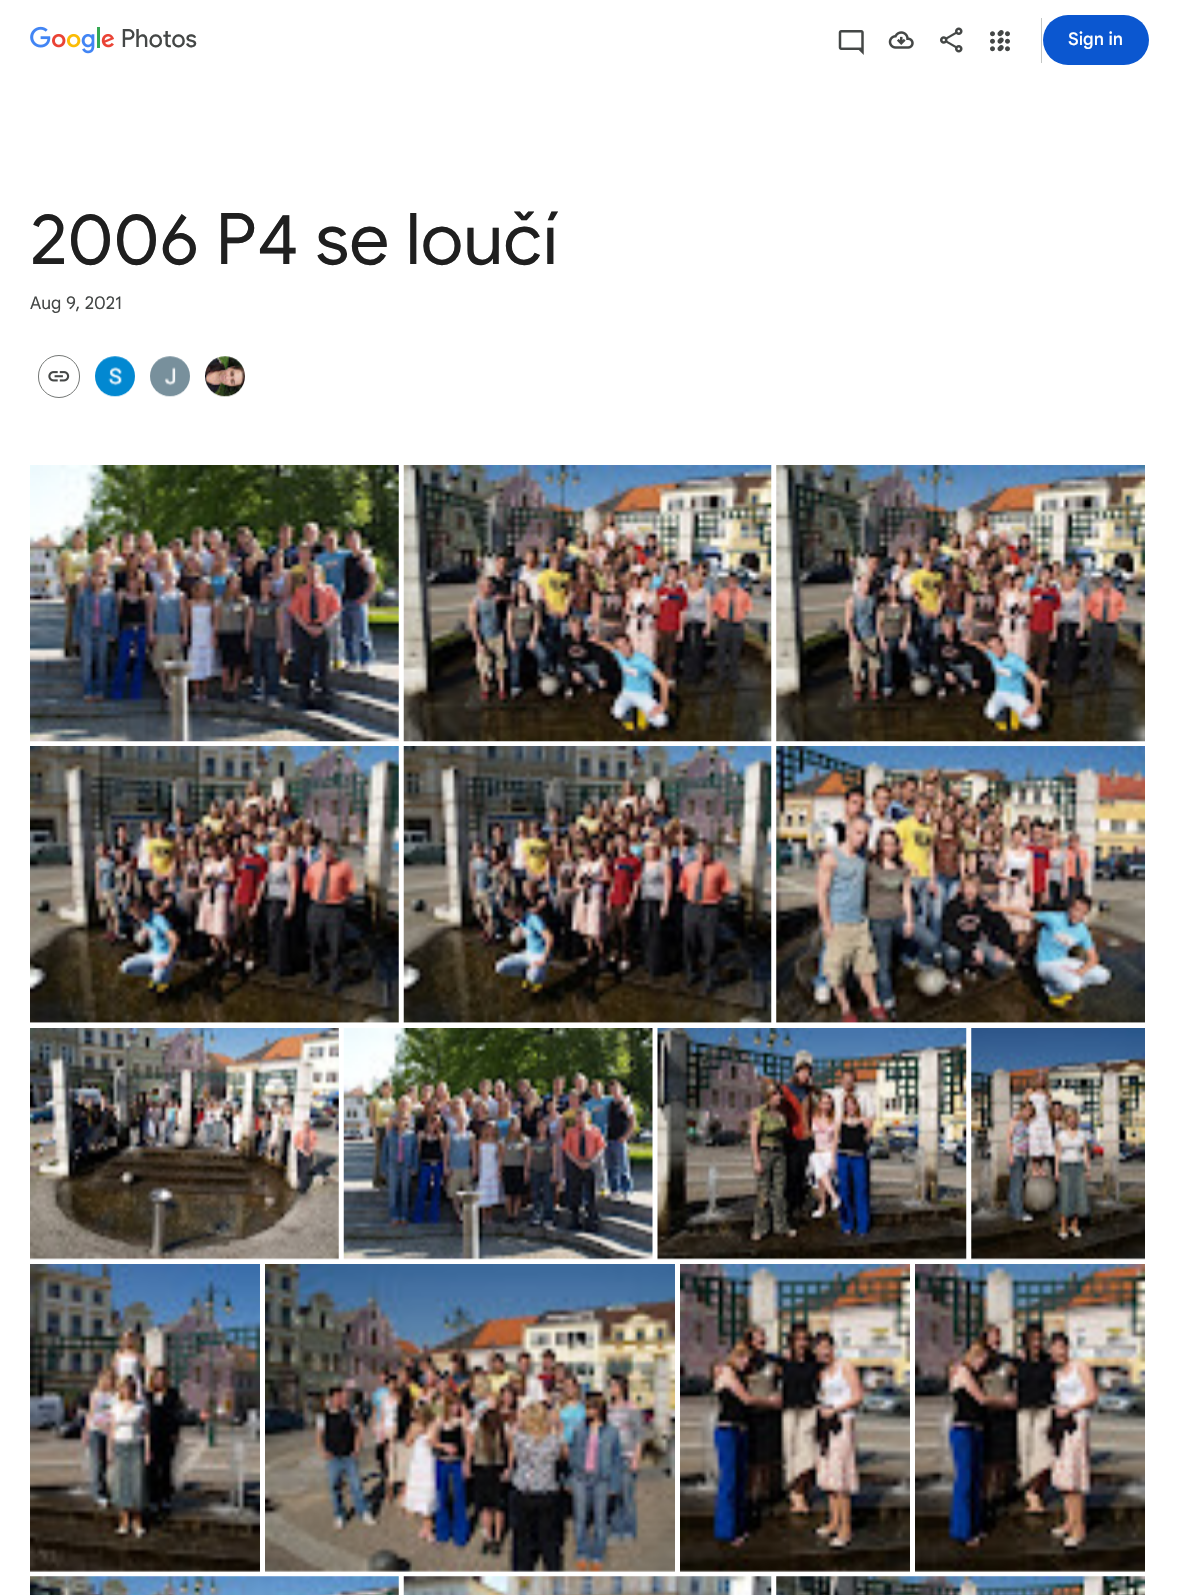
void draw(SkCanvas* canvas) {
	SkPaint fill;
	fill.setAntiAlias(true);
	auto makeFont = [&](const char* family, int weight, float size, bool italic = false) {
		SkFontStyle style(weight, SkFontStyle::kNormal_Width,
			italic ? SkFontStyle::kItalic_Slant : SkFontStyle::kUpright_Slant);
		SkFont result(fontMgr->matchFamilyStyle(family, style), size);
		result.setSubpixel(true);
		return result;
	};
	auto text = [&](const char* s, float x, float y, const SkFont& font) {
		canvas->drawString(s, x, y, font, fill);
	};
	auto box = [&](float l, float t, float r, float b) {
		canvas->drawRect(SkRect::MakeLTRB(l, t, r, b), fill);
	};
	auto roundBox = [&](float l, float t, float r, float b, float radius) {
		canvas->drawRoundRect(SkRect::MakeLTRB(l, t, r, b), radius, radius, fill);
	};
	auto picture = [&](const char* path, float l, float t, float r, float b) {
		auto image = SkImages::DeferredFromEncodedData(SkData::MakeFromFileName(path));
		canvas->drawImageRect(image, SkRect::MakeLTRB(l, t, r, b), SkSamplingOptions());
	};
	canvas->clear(0xFFFFFFFF);
	picture("image0.png", 30, 26, 114, 54);
	picture("image1.png", 838, 30, 864, 55);
	picture("image2.png", 888, 31, 914, 49);
	picture("image3.png", 940, 27, 963, 53);
	picture("image4.png", 998, 30, 1004, 50);
	fill.setColor(0xFFC4C7C5);
	box(1041, 18, 1042, 63);
	fill.setStyle(SkPaint::kStroke_Style);
	fill.setStrokeWidth(1);
	fill.setColor(0xFF747775);
	canvas->drawRoundRect(SkRect::MakeLTRB(38.5f, 355.5f, 79.5f, 397.5f), 20.5f, 20.5f, fill);
	picture("image5.png", 48, 371, 70, 382);
	picture("image6.png", 95, 356, 135, 397);
	picture("image7.png", 150, 356, 190, 397);
	picture("image8.png", 205, 356, 245, 397);
	picture("image9.png", 30, 465, 399, 742);
	picture("image10.png", 403, 465, 772, 742);
	picture("image11.png", 776, 465, 1145, 742);
	picture("image12.png", 30, 746, 399, 1023);
	picture("image13.png", 403, 746, 772, 1023);
	picture("image14.png", 776, 746, 1145, 1023);
	picture("image15.png", 30, 1028, 339, 1260);
	picture("image16.png", 343, 1028, 653, 1260);
	picture("image17.png", 657, 1028, 967, 1260);
	picture("image18.png", 971, 1028, 1145, 1260);
	picture("image19.png", 30, 1264, 260, 1572);
	picture("image20.png", 265, 1264, 675, 1572);
	picture("image21.png", 680, 1264, 910, 1572);
	picture("image22.png", 915, 1264, 1145, 1572);
	picture("image23.png", 30, 1576, 399, 1595);
	picture("image24.png", 403, 1576, 772, 1595);
	picture("image25.png", 776, 1576, 1145, 1595);
	picture("image26.png", 990, 31, 1010, 52);
	fill.setStyle(SkPaint::kFill_Style);
	fill.setColor(0xFF0B57D0);
	roundBox(1043, 15, 1149, 65, 25);
	auto font1 = makeFont("Product Sans", 400, 25);
	fill.setColor(0xFF444746);
	text("Photos", 121, 47, font1);
	auto font2 = makeFont("Google Sans", 400, 71.25f);
	fill.setColor(0xFF1F1F1F);
	text("2006 P4 se loučí", 30, 264, font2);
	auto font3 = makeFont("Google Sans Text", 400, 17.5f);
	fill.setColor(0xFF444746);
	text("Aug 9, 2021", 30, 309, font3);
	auto font4 = makeFont("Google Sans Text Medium", 500, 17.5f);
	fill.setColor(0xFFFFFFFF);
	text("Sign in", 1068, 45, font4);
}
